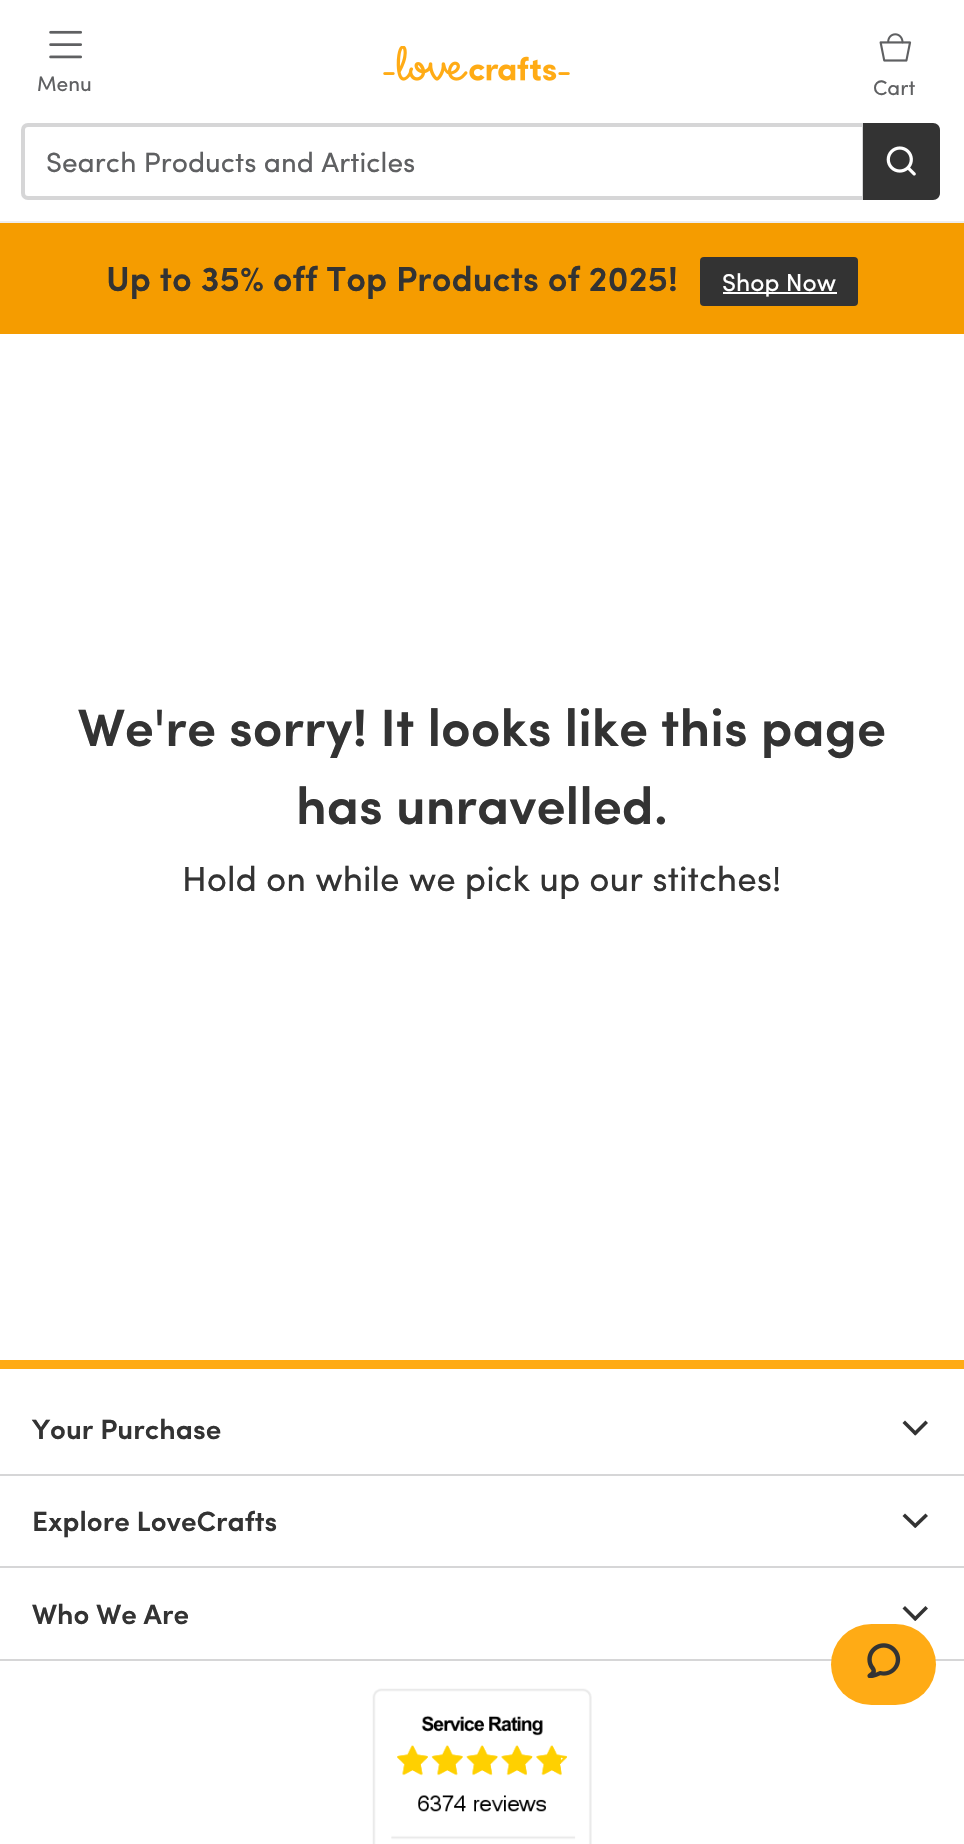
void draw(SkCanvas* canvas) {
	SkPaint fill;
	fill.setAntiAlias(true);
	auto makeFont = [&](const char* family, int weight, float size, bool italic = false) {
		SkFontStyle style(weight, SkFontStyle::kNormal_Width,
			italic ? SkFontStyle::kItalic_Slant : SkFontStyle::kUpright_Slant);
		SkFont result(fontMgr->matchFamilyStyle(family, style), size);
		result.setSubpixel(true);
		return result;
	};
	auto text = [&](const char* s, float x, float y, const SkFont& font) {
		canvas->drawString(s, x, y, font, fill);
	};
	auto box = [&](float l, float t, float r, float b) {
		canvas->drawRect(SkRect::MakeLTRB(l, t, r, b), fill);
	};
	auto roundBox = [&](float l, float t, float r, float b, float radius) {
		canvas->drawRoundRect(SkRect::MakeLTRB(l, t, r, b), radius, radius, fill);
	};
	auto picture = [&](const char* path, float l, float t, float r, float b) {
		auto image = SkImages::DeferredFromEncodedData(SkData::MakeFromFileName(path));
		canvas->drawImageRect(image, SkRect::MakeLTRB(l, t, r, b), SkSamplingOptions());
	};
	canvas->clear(0xFFFFFFFF);
	fill.setColor(0xFFEEEEEE);
	box(0, 221, 964, 223);
	picture("image0.png", 383, 46, 570, 81);
	picture("image1.png", 49, 30, 82, 59);
	picture("image2.png", 879, 33, 912, 62);
	fill.setStyle(SkPaint::kStroke_Style);
	fill.setStrokeWidth(4);
	fill.setColor(0xFFD6D6D7);
	canvas->drawPath(SkPathBuilder().moveTo(28, 125).lineTo(864, 125).lineTo(864, 198).lineTo(28, 198).cubicTo(25, 198, 23, 196, 23, 193).lineTo(23, 130).cubicTo(23, 127, 25, 125, 28, 125).close().detach(), fill);
	fill.setStyle(SkPaint::kFill_Style);
	fill.setColor(0xFF333333);
	canvas->drawPath(SkPathBuilder().moveTo(863, 123).lineTo(933, 123).cubicTo(937, 123, 940, 126, 940, 130).lineTo(940, 193).cubicTo(940, 197, 937, 200, 933, 200).lineTo(863, 200).close().detach(), fill);
	picture("image3.png", 886, 146, 916, 176);
	fill.setColor(0xFFF59C00);
	box(0, 223, 964, 334);
	fill.setColor(0xFF333333);
	roundBox(700, 257, 858, 306, 4);
	fill.setColor(0xFFFFFFFF);
	box(723, 292, 837, 294);
	fill.setColor(0xFFFFAB15);
	box(0, 1360, 964, 1369);
	fill.setColor(0xFFD6D6D7);
	box(0, 1474, 964, 1476);
	fill.setColor(0xFF333333);
	canvas->drawPath(SkPathBuilder().moveTo(905, 1420.5f).lineTo(917.5f, 1433).lineTo(915, 1435.5f).lineTo(902.5f, 1423).close().detach(), fill);
	canvas->drawPath(SkPathBuilder().moveTo(913, 1433).lineTo(925.5f, 1420.5f).lineTo(928, 1423).lineTo(915.5f, 1435.5f).close().detach(), fill);
	fill.setColor(0xFFD6D6D7);
	box(0, 1566, 964, 1568);
	fill.setColor(0xFF333333);
	canvas->drawPath(SkPathBuilder().moveTo(905, 1513.5f).lineTo(917.5f, 1525.5f).lineTo(915, 1528).lineTo(902.5f, 1516).close().detach(), fill);
	canvas->drawPath(SkPathBuilder().moveTo(913, 1525.5f).lineTo(925.5f, 1513.5f).lineTo(928, 1516).lineTo(915.5f, 1528).close().detach(), fill);
	fill.setColor(0xFFD6D6D7);
	box(0, 1659, 964, 1661);
	fill.setColor(0xFF333333);
	canvas->drawPath(SkPathBuilder().moveTo(905, 1606).lineTo(917.5f, 1618.5f).lineTo(915, 1621).lineTo(902.5f, 1608.5f).close().detach(), fill);
	canvas->drawPath(SkPathBuilder().moveTo(913, 1618.5f).lineTo(925.5f, 1606).lineTo(928, 1608.5f).lineTo(915.5f, 1621).close().detach(), fill);
	picture("image4.png", 372, 1688, 592, 1844);
	fill.setColor(0xFFFFAB15);
	roundBox(831, 1624, 936, 1705, 40.5f);
	picture("image5.png", 867, 1643, 901, 1678);
	auto font1 = makeFont("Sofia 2", 400, 21);
	fill.setColor(0xFF5F6062);
	text("Menu", 37, 91, font1);
	text("Cart", 873, 95, font1);
	auto font2 = makeFont("Sofia 2", 400, 28);
	text("Search Products and Articles", 46, 172, font2);
	auto font3 = makeFont("Sofia", 400, 35);
	fill.setColor(0xFF333333);
	text("Up to 35% off Top Products of 2025!", 106, 291, font3);
	auto font4 = makeFont("Sofia 2", 400, 24.5f);
	fill.setColor(0xFFFFFFFF);
	text("Shop Now", 722, 291, font4);
	auto font5 = makeFont("Sofia", 400, 52.5f);
	fill.setColor(0xFF333333);
	text("We're sorry! It looks like this page", 78, 746, font5);
	text("has unravelled.", 296, 824, font5);
	auto font6 = makeFont("Sofia 2", 400, 35);
	text("Hold on while we pick up our stitches!", 182, 891, font6);
	auto font7 = makeFont("Sofia", 400, 28);
	text("Your Purchase", 32, 1439, font7);
	text("Explore LoveCrafts", 32, 1531, font7);
	text("Who We Are", 32, 1624, font7);
}
